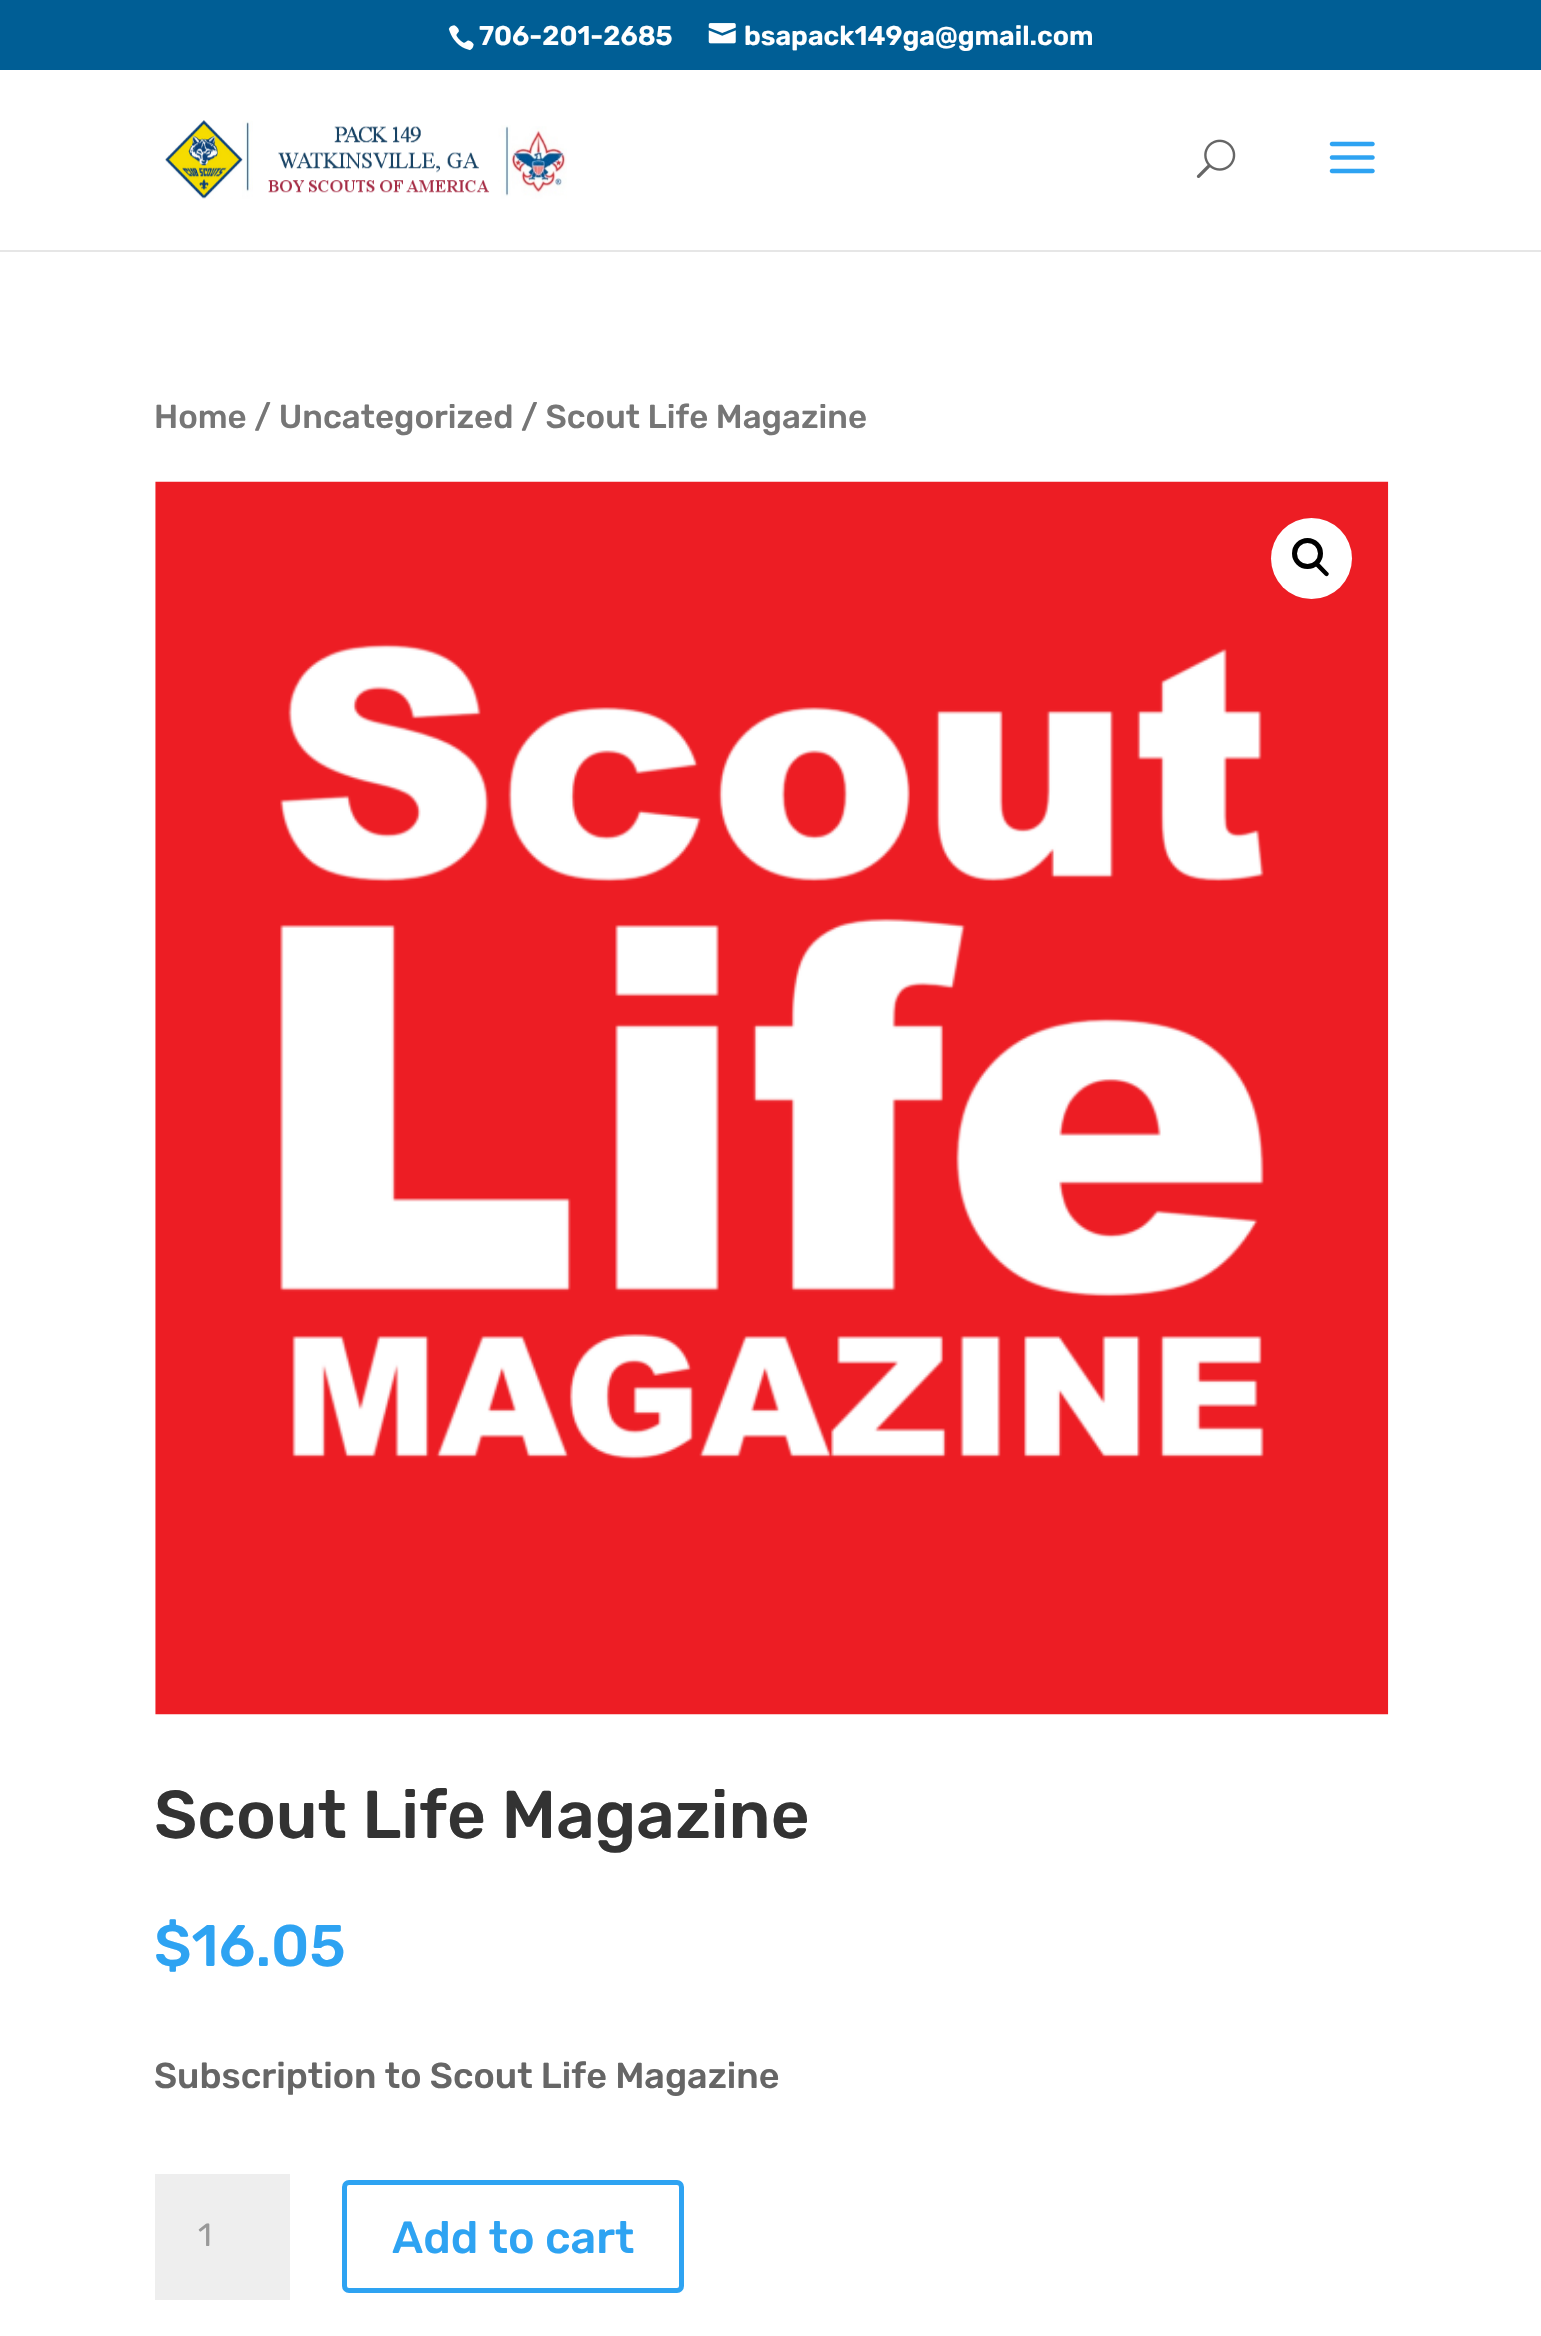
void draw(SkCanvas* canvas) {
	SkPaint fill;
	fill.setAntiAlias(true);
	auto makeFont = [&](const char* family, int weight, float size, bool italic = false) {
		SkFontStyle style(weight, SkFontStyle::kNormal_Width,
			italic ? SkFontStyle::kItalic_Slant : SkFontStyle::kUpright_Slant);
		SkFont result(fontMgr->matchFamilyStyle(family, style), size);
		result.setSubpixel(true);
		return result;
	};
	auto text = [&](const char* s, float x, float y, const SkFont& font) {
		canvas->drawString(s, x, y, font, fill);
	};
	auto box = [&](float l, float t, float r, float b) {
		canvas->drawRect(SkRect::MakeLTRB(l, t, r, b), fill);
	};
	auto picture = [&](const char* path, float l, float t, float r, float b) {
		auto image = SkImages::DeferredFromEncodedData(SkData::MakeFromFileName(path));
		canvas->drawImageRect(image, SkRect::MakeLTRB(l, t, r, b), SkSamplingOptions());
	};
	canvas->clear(0xFFFFFFFF);
	fill.setColor(0xFF005E95);
	box(0, 0, 1541, 70);
	picture("image0.png", 448, 25, 474, 51);
	picture("image1.png", 708, 23, 736, 44);
	fill.setColor(0xFFE6E6E6);
	box(0, 250, 1541, 252);
	picture("image2.png", 165, 120, 567, 199);
	picture("image3.png", 1196, 139, 1236, 178);
	picture("image4.png", 1329, 141, 1375, 174);
	picture("image5.png", 155, 481, 1389, 1715);
	fill.setColor(0xFFFFFFFF);
	canvas->drawCircle(1311.5f, 558.5f, 40.5f, fill);
	fill.setStyle(SkPaint::kStroke_Style);
	fill.setStrokeWidth(5);
	fill.setColor(0xFF000000);
	canvas->drawCircle(1307.5f, 553.5f, 13, fill);
	fill.setStyle(SkPaint::kFill_Style);
	canvas->drawPath(SkPathBuilder().moveTo(1315.5f, 562.5f).cubicTo(1316.5f, 562, 1318, 562, 1318.5f, 562.5f).lineTo(1328, 572.5f).cubicTo(1329, 573, 1329, 574.5f, 1328, 575.5f).cubicTo(1327.5f, 576.5f, 1326, 576.5f, 1325, 575.5f).lineTo(1315.5f, 566).cubicTo(1314.5f, 565, 1314.5f, 563.5f, 1315.5f, 562.5f).close().detach(), fill);
	fill.setColor(0xFFEEEEEE);
	box(155, 2174, 290, 2300);
	fill.setStyle(SkPaint::kStroke_Style);
	fill.setColor(0xFF2EA3F2);
	canvas->drawRoundRect(SkRect::MakeLTRB(344.5f, 2182.5f, 681.5f, 2290.5f), 4.5f, 4.5f, fill);
	auto font1 = makeFont("Rubik", 600, 27);
	fill.setStyle(SkPaint::kFill_Style);
	fill.setColor(0xFFFFFFFF);
	text("706-201-2685", 479, 45, font1);
	text("bsapack149ga@gmail.com", 744, 45, font1);
	auto font2 = makeFont("Rubik", 300, 33.1f);
	fill.setColor(0xFF767676);
	text("Home / Uncategorized / Scout Life Magazine", 154, 428, font2);
	auto font3 = makeFont("Rubik", 300, 67.5f);
	fill.setColor(0xFF333333);
	text("Scout Life Magazine", 154, 1838, font3);
	auto font4 = makeFont("Rubik", 300, 58.5f);
	fill.setColor(0xFF2EA3F2);
	text("$16.05", 154, 1966, font4);
	auto font5 = makeFont("Rubik", 300, 36);
	fill.setColor(0xFF666666);
	text("Subscription to Scout Life Magazine", 154, 2088, font5);
	auto font6 = makeFont("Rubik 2", 300, 32);
	fill.setColor(0xFF999999);
	text("1", 198, 2246, font6);
	auto font7 = makeFont("Rubik", 300, 45);
	fill.setColor(0xFF2EA3F2);
	text("Add to cart", 392, 2253, font7);
}
